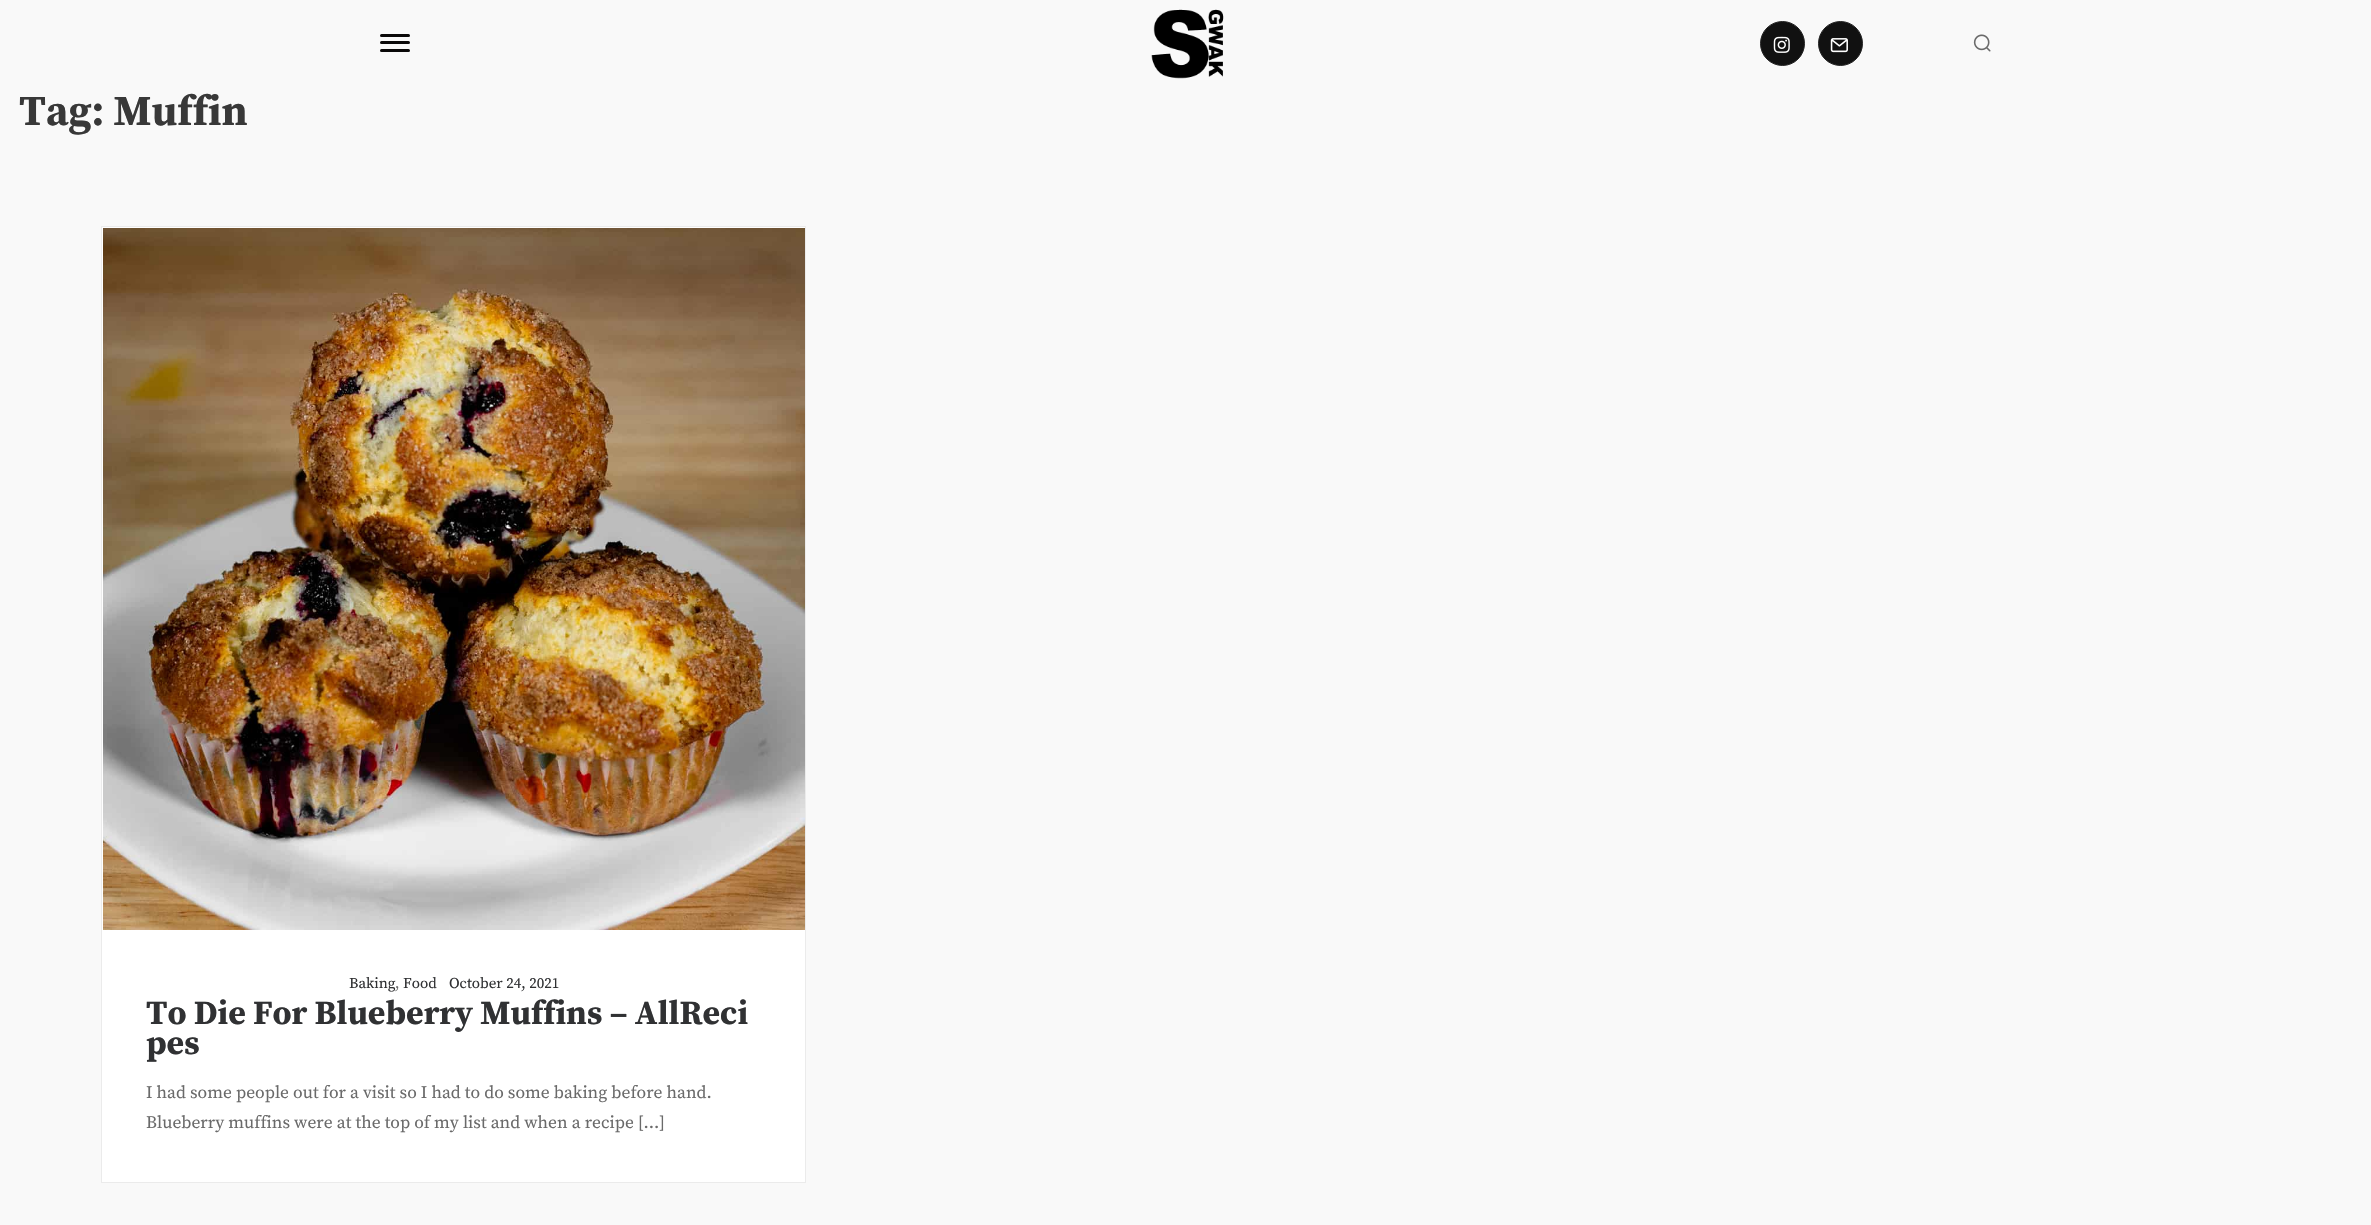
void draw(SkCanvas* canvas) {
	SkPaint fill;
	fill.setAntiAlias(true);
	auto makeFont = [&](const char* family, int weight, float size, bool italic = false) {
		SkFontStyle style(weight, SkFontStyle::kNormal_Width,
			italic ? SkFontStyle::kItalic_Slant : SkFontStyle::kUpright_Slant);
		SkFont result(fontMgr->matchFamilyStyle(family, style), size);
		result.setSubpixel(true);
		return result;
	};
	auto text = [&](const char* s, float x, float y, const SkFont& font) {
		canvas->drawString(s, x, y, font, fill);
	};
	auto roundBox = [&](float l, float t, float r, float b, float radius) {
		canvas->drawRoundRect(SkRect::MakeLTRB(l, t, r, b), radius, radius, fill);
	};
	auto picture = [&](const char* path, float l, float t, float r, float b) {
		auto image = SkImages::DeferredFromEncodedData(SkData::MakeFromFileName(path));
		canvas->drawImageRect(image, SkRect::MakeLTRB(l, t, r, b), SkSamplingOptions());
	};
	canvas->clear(0xFFF9F9F9);
	fill.setColor(0xFF0A0909);
	roundBox(380, 34, 410, 37, 1.5f);
	roundBox(380, 41, 410, 44, 1.5f);
	roundBox(380, 49, 410, 52, 1.5f);
	picture("image0.png", 1151, 9, 1224, 79);
	fill.setColor(0xFF111111);
	canvas->drawCircle(1782.5f, 43.5f, 22, fill);
	fill.setStyle(SkPaint::kStroke_Style);
	fill.setStrokeWidth(1);
	fill.setColor(0xFF222222);
	canvas->drawCircle(1782.5f, 43.5f, 22, fill);
	picture("image1.png", 1773, 36, 1790, 53);
	fill.setStyle(SkPaint::kFill_Style);
	fill.setColor(0xFF111111);
	canvas->drawCircle(1840.5f, 43.5f, 22, fill);
	fill.setStyle(SkPaint::kStroke_Style);
	fill.setColor(0xFF222222);
	canvas->drawCircle(1840.5f, 43.5f, 22, fill);
	picture("image2.png", 1830, 38, 1848, 53);
	picture("image3.png", 1973, 34, 1991, 52);
	fill.setStyle(SkPaint::kFill_Style);
	fill.setColor(0xFFFFFFFF);
	canvas->drawRect(SkRect::MakeLTRB(101.5f, 226.5f, 805.5f, 1182.5f), fill);
	fill.setStyle(SkPaint::kStroke_Style);
	fill.setColor(0xFFEBEBEB);
	canvas->drawRect(SkRect::MakeLTRB(101.5f, 226.5f, 805.5f, 1182.5f), fill);
	picture("image4.png", 103, 228, 805, 930);
	auto font1 = makeFont("Source Serif Pro", 700, 42.5f);
	fill.setStyle(SkPaint::kFill_Style);
	fill.setColor(0xFF383838);
	text("Tag: Muffin", 19, 125, font1);
	auto font2 = makeFont("Source Serif Pro", 400, 15);
	fill.setColor(0xFF303133);
	text("Baking", 349, 988, font2);
	fill.setColor(0xFF6A6A6A);
	text(",", 395, 988, font2);
	fill.setColor(0xFF303133);
	text("Food", 403, 988, font2);
	text("October 24, 2021", 449, 988, font2);
	auto font3 = makeFont("Source Serif Pro", 700, 33.75f);
	text("To Die For Blueberry Muffins – AllReci", 146, 1024, font3);
	text("pes", 146, 1054, font3);
	auto font4 = makeFont("Source Serif Pro", 400, 17.5f);
	fill.setColor(0xFF6A6A6A);
	text("I had some people out for a visit so I had to do some baking before hand.", 146, 1098, font4);
	text("Blueberry muffins were at the top of my list and when a recipe [...]", 146, 1128, font4);
}
